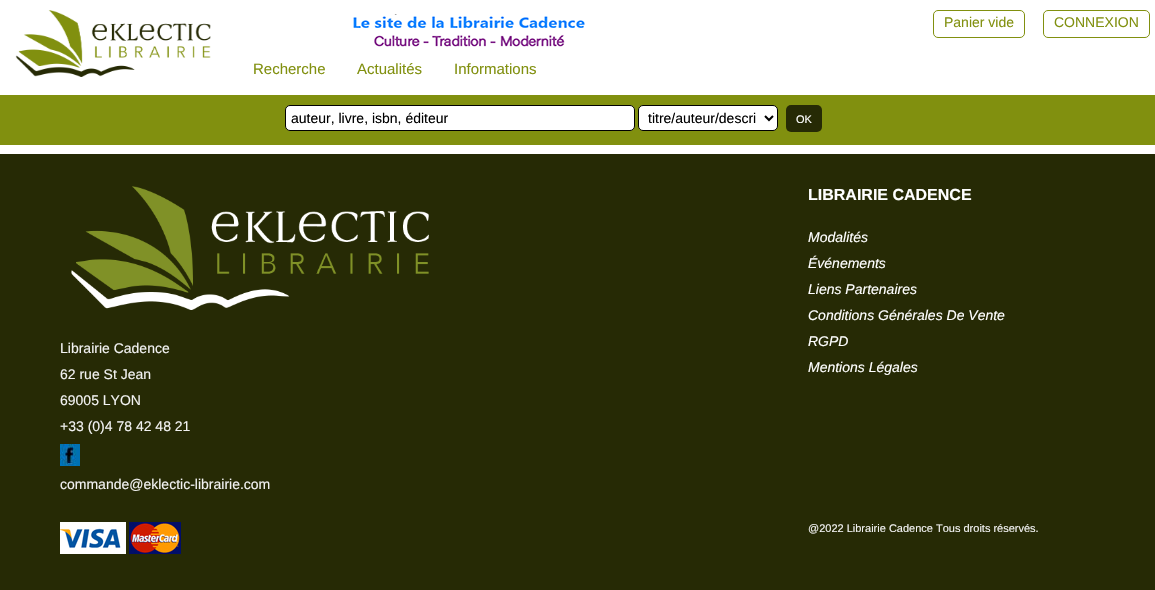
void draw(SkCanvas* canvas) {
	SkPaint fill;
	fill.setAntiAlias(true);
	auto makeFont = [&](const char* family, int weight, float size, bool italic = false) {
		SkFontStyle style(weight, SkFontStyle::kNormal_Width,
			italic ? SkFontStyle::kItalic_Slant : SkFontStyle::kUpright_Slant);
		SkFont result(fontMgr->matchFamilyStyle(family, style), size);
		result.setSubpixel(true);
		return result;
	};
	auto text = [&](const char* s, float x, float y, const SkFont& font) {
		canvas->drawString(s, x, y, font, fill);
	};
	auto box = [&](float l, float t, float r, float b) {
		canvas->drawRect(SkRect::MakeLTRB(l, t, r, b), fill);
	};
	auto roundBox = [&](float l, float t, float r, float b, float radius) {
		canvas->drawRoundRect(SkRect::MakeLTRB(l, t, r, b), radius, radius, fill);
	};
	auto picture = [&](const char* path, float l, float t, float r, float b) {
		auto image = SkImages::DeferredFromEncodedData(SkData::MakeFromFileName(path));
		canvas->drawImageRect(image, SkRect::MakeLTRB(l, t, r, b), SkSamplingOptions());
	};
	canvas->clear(0xFFFFFFFF);
	picture("image0.png", 15, 10, 211, 77);
	picture("image1.png", 353, 14, 585, 47);
	fill.setStyle(SkPaint::kStroke_Style);
	fill.setStrokeWidth(1);
	fill.setColor(0xFF81900F);
	canvas->drawRoundRect(SkRect::MakeLTRB(933.5f, 10.5f, 1024.5f, 37.5f), 4.5f, 4.5f, fill);
	canvas->drawRoundRect(SkRect::MakeLTRB(1043.5f, 10.5f, 1149.5f, 37.5f), 4.5f, 4.5f, fill);
	fill.setStyle(SkPaint::kFill_Style);
	box(0, 95, 1155, 145);
	fill.setColor(0xFFFFFFFF);
	canvas->drawRoundRect(SkRect::MakeLTRB(285.5f, 105.5f, 634.5f, 130.5f), 4.5f, 4.5f, fill);
	fill.setStyle(SkPaint::kStroke_Style);
	fill.setColor(0xFF000000);
	canvas->drawRoundRect(SkRect::MakeLTRB(285.5f, 105.5f, 634.5f, 130.5f), 4.5f, 4.5f, fill);
	fill.setStyle(SkPaint::kFill_Style);
	fill.setColor(0xFFFFFFFF);
	canvas->drawRoundRect(SkRect::MakeLTRB(638.5f, 105.5f, 777.5f, 130.5f), 4.5f, 4.5f, fill);
	fill.setStyle(SkPaint::kStroke_Style);
	fill.setColor(0xFF000000);
	canvas->drawRoundRect(SkRect::MakeLTRB(638.5f, 105.5f, 777.5f, 130.5f), 4.5f, 4.5f, fill);
	fill.setStrokeWidth(2);
	canvas->drawPath(SkPathBuilder().moveTo(765, 116).lineTo(769, 120).lineTo(773, 116).detach(), fill);
	fill.setStyle(SkPaint::kFill_Style);
	fill.setColor(0xFF262A05);
	roundBox(786, 105, 822, 132, 5);
	box(0, 154, 1155, 590);
	picture("image2.png", 71, 186, 429, 310);
	picture("image3.png", 60, 444, 80, 466);
	picture("image4.png", 60, 522, 126, 554);
	picture("image5.png", 129, 522, 181, 554);
	auto font1 = makeFont("Liberation Sans", 400, 14);
	fill.setColor(0xFF81900F);
	text("Panier vide", 944, 27, font1);
	text("CONNEXION", 1054, 27, font1);
	auto font2 = makeFont("Liberation Sans", 400, 15);
	text("Recherche", 253, 74, font2);
	text("Actualités", 357, 74, font2);
	text("Informations", 454, 74, font2);
	fill.setColor(0xFF000000);
	text("auteur, livre, isbn, éditeur", 291, 123, font1);
	text("titre/auteur/descri", 648, 123, font1);
	auto font3 = makeFont("Liberation Sans", 400, 11);
	fill.setColor(0xFFFFFFFF);
	text("OK", 796, 123, font3);
	auto font4 = makeFont("Liberation Sans", 700, 16);
	text("LIBRAIRIE CADENCE", 808, 200, font4);
	auto font5 = makeFont("Liberation Sans", 400, 14, true);
	text("Modalités", 808, 242, font5);
	text("Événements", 808, 268, font5);
	text("Liens Partenaires", 808, 294, font5);
	text("Conditions Générales De Vente", 808, 320, font5);
	text("RGPD", 808, 346, font5);
	text("Mentions Légales", 808, 372, font5);
	fill.setColor(0xFFF2F2F2);
	text("Librairie Cadence", 60, 353, font1);
	text("62 rue St Jean", 60, 379, font1);
	text("69005 LYON", 60, 405, font1);
	text("+33 (0)4 78 42 48 21", 60, 431, font1);
	text("commande@eklectic-librairie.com", 60, 489, font1);
	text("@2022 Librairie Cadence Tous droits réservés.", 808, 532, font3);
}
